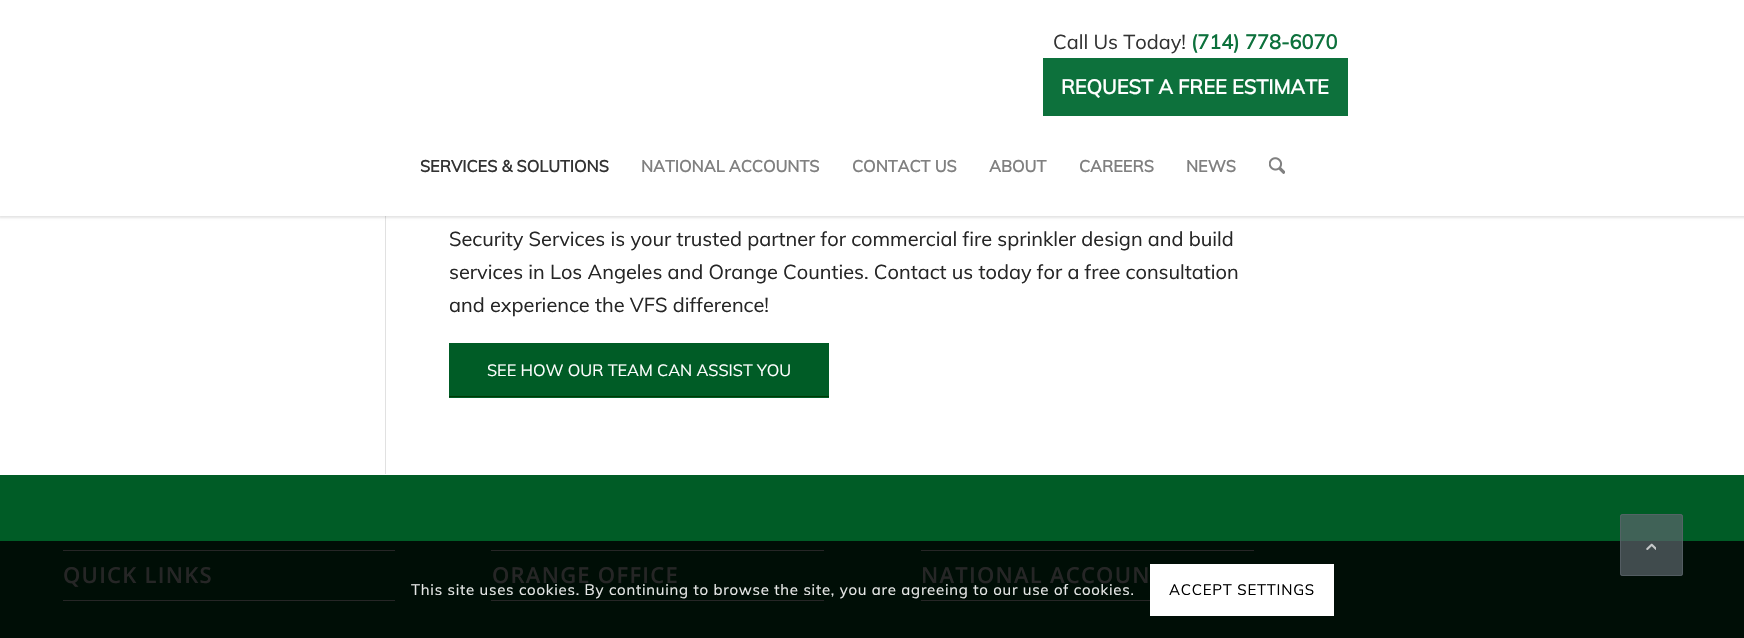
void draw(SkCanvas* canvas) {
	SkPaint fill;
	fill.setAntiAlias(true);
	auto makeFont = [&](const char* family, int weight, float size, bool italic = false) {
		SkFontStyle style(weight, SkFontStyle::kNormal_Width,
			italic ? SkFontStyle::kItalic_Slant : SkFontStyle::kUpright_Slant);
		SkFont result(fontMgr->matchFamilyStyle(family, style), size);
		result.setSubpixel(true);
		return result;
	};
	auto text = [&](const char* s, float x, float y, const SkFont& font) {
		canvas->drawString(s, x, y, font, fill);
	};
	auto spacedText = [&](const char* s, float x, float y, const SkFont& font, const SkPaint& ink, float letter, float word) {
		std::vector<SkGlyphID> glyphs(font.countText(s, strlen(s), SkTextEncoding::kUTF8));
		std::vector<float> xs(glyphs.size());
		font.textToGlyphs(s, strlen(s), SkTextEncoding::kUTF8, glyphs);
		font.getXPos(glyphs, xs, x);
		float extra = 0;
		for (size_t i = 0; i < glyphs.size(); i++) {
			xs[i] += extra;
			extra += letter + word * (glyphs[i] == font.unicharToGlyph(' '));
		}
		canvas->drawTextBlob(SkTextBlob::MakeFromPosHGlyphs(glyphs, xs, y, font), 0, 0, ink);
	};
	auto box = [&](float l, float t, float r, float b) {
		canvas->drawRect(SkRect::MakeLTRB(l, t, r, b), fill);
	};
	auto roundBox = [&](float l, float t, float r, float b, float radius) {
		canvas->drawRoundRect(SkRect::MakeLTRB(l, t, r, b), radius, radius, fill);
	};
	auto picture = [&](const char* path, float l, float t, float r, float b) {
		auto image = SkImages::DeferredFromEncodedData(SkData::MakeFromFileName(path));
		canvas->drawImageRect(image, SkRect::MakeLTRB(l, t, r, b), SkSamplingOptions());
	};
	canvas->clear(0xFFFFFFFF);
	fill.setColor(0xFFE1E1E1);
	box(385, 216, 386, 474);
	fill.setColor(0x1A000000);
	fill.setMaskFilter(SkMaskFilter::MakeBlur(kNormal_SkBlurStyle, 1));
	canvas->drawRect(SkRect::MakeLTRB(-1, -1, 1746, 218), fill);
	fill.setMaskFilter(nullptr);
	fill.setColor(0xFFFFFFFF);
	box(0, 0, 1744, 216);
	fill.setColor(0xFF0D713C);
	box(1043, 58, 1348, 116);
	picture("image0.png", 1269, 157, 1285, 174);
	fill.setColor(0xFF005C26);
	box(449, 343, 829, 398);
	fill.setColor(0xFF003A04);
	box(449, 396, 829, 397);
	fill.setColor(0xFF005C26);
	box(0, 475, 1744, 541);
	fill.setColor(0xFF000E06);
	box(0, 541, 1744, 638);
	fill.setColor(0xFF262626);
	box(63, 550, 395, 551);
	box(63, 600, 395, 601);
	box(491, 550, 824, 551);
	box(491, 600, 824, 601);
	box(921, 550, 1254, 551);
	box(921, 600, 1150, 601);
	fill.setColor(0xB35B646B);
	roundBox(1620, 514, 1683, 576, 2.5f);
	fill.setStyle(SkPaint::kStroke_Style);
	fill.setStrokeWidth(1);
	canvas->drawRoundRect(SkRect::MakeLTRB(1620.5f, 514.5f, 1682.5f, 575.5f), 2, 2, fill);
	picture("image1.png", 1646, 543, 1656, 550);
	fill.setStyle(SkPaint::kFill_Style);
	fill.setColor(0xFFFFFFFF);
	box(1150, 564, 1334, 616);
	auto font1 = makeFont("Muli", 400, 20);
	fill.setColor(0xFF333333);
	text("Call Us Today!", 1053, 49, font1);
	auto font2 = makeFont("Muli", 700, 20);
	fill.setColor(0xFF0D713C);
	text("(714) 778-6070", 1191, 49, font2);
	fill.setColor(0xFFFFFFFF);
	text("REQUEST A FREE ESTIMATE", 1061, 94, font2);
	auto font3 = makeFont("Muli", 700, 16.25f);
	fill.setColor(0xFF333333);
	text("SERVICES & SOLUTIONS", 420, 172, font3);
	fill.setColor(0xFF808080);
	text("NATIONAL ACCOUNTS", 641, 172, font3);
	text("CONTACT US", 852, 172, font3);
	text("ABOUT", 989, 172, font3);
	text("CAREERS", 1079, 172, font3);
	text("NEWS", 1186, 172, font3);
	fill.setColor(0xFF262626);
	text("Security Services is your trusted partner for commercial fire sprinkler design and build", 449, 246, font1);
	text("services in Los Angeles and Orange Counties. Contact us today for a free consultation", 449, 279, font1);
	text("and experience the VFS difference!", 449, 312, font1);
	auto font4 = makeFont("Muli", 400, 16.25f);
	fill.setColor(0xFFFFFFFF);
	text("SEE HOW OUR TEAM CAN ASSIST YOU", 487, 376, font4);
	auto font5 = makeFont("Open Sans", 600, 22);
	fill.setColor(0xFF262626);
	spacedText("QUICK LINKS", 63, 583, font5, fill, 1.25f, 0);
	spacedText("ORANGE OFFICE", 492, 583, font5, fill, 1.25f, 0);
	spacedText("NATIONAL ACCOUN", 921, 583, font5, fill, 1.25f, 0);
	auto font6 = makeFont("Muli", 400, 15);
	fill.setColor(0xFFE6E7E6);
	spacedText("This site uses cookies. By continuing to browse the site, you are agreeing to our use of cookies.", 411, 595, font6, fill, 0.75f, 0);
	fill.setColor(0xFF000000);
	spacedText("ACCEPT SETTINGS", 1169, 595, font6, fill, 0.75f, 0);
}
